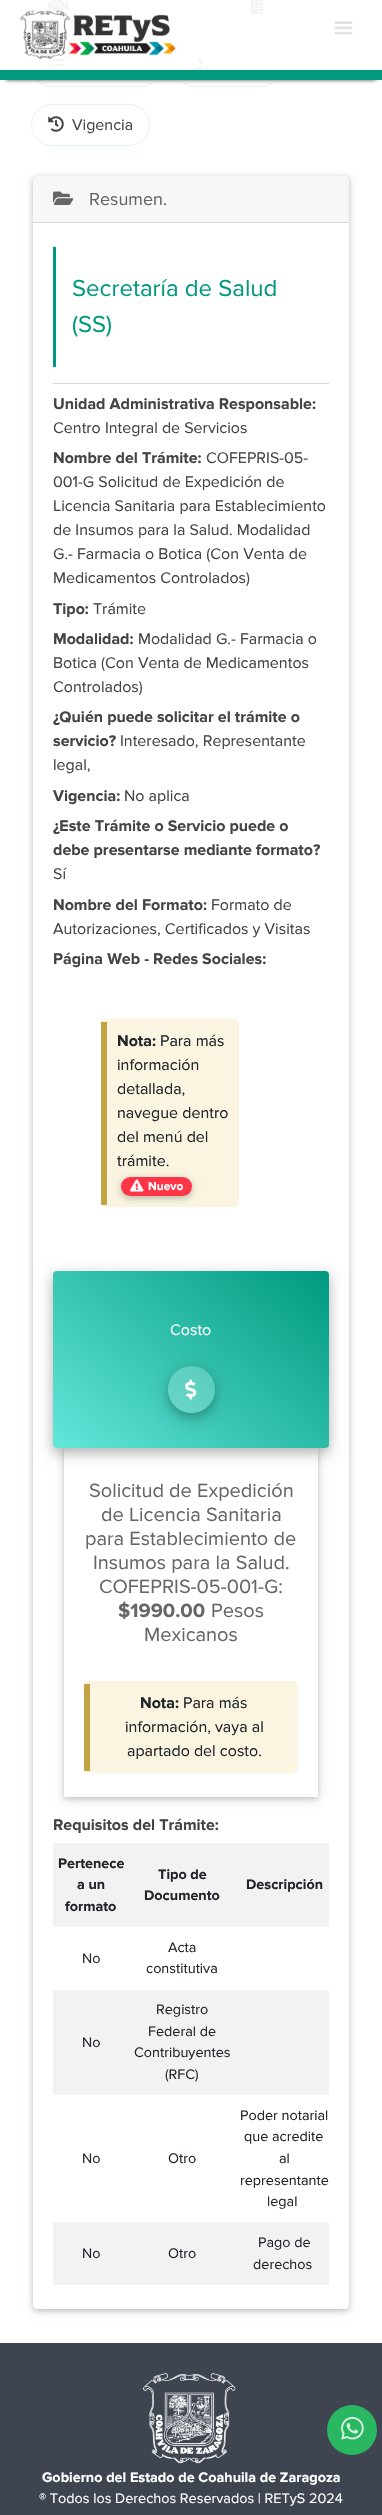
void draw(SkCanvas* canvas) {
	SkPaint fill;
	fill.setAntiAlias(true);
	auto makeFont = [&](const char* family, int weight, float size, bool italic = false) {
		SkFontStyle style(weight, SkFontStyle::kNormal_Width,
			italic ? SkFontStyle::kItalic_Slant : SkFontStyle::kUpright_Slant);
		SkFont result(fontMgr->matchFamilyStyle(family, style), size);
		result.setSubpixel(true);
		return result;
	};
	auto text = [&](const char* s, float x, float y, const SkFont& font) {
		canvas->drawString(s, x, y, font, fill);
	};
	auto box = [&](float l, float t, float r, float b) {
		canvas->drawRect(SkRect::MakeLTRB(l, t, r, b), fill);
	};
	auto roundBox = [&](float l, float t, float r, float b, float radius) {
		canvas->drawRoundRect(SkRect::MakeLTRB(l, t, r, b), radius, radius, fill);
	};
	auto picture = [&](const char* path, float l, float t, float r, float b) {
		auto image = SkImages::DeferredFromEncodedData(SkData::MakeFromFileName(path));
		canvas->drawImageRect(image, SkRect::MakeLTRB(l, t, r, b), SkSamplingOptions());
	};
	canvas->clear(0xFFFFFFFF);
	fill.setStyle(SkPaint::kStroke_Style);
	fill.setStrokeWidth(1);
	fill.setColor(0xFFE4F2F5);
	canvas->drawRoundRect(SkRect::MakeLTRB(31.5f, -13.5f, 221.5f, 27.5f), 20.5f, 20.5f, fill);
	picture("image2.png", 48, 0, 68, 12);
	canvas->drawRoundRect(SkRect::MakeLTRB(234.5f, -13.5f, 346.5f, 27.5f), 20.5f, 20.5f, fill);
	picture("image3.png", 251, 0, 263, 14);
	canvas->drawRoundRect(SkRect::MakeLTRB(31.5f, 45.5f, 161.5f, 86.5f), 20.5f, 20.5f, fill);
	picture("image4.png", 48, 58, 64, 70);
	canvas->drawRoundRect(SkRect::MakeLTRB(174.5f, 45.5f, 281.5f, 86.5f), 20.5f, 20.5f, fill);
	picture("image5.png", 191, 57, 209, 70);
	canvas->save();
	canvas->clipRect(SkRect::MakeLTRB(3, 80, 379, 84));
	fill.setStyle(SkPaint::kFill_Style);
	fill.setColor(0xFF444444);
	fill.setMaskFilter(SkMaskFilter::MakeBlur(kNormal_SkBlurStyle, 2));
	canvas->drawRect(SkRect::MakeLTRB(6, 12, 376, 80), fill);
	fill.setMaskFilter(nullptr);
	canvas->restore();
	fill.setColor(0xF0FFFFFF);
	box(31, 0, 347, 70);
	fill.setColor(0xFF00997F);
	box(0, 70, 382, 80);
	picture("image0.png", 20, 10, 176, 59);
	picture("image1.png", 334, 21, 353, 35);
	fill.setStyle(SkPaint::kStroke_Style);
	fill.setColor(0xFFE4F2F5);
	canvas->drawRoundRect(SkRect::MakeLTRB(31.5f, 104.5f, 149.5f, 145.5f), 20.5f, 20.5f, fill);
	picture("image6.png", 48, 116, 64, 132);
	fill.setStyle(SkPaint::kFill_Style);
	fill.setColor(0x1F000000);
	fill.setMaskFilter(SkMaskFilter::MakeBlur(kNormal_SkBlurStyle, 5));
	canvas->drawRoundRect(SkRect::MakeLTRB(33, 178, 349, 2311), 4, 4, fill);
	fill.setMaskFilter(nullptr);
	fill.setColor(0x29000000);
	fill.setMaskFilter(SkMaskFilter::MakeBlur(kNormal_SkBlurStyle, 2.5f));
	canvas->drawRoundRect(SkRect::MakeLTRB(33, 178, 349, 2311), 4, 4, fill);
	fill.setMaskFilter(nullptr);
	fill.setColor(0xFFFFFFFF);
	roundBox(33, 176, 349, 2309, 4);
	fill.setColor(0x08000000);
	box(33, 176, 349, 222);
	fill.setColor(0xFFD8D8D8);
	box(33, 222, 349, 223);
	picture("image7.png", 53, 191, 74, 205);
	fill.setColor(0xFF00997F);
	box(53, 247, 56, 367);
	fill.setColor(0xFFD8D8D8);
	box(53, 383, 329, 384);
	fill.setColor(0xFFFAF4E0);
	roundBox(101, 1019, 239, 1207, 5);
	fill.setColor(0xFFC2A442);
	box(101, 1022, 107, 1205);
	fill.setColor(0x1F000000);
	fill.setMaskFilter(SkMaskFilter::MakeBlur(kNormal_SkBlurStyle, 5));
	canvas->drawRoundRect(SkRect::MakeLTRB(121, 1179, 192, 1198), 9.5f, 9.5f, fill);
	fill.setMaskFilter(nullptr);
	fill.setColor(0x29000000);
	fill.setMaskFilter(SkMaskFilter::MakeBlur(kNormal_SkBlurStyle, 2.5f));
	canvas->drawRoundRect(SkRect::MakeLTRB(121, 1179, 192, 1198), 9.5f, 9.5f, fill);
	fill.setMaskFilter(nullptr);
	fill.setColor(0xFFFF3547);
	roundBox(121, 1177, 192, 1196, 9.5f);
	picture("image8.png", 130, 1179, 144, 1192);
	fill.setColor(0x26000000);
	fill.setMaskFilter(SkMaskFilter::MakeBlur(kNormal_SkBlurStyle, 7.5f));
	canvas->drawRoundRect(SkRect::MakeLTRB(53, 1275, 329, 1452), 4, 4, fill);
	fill.setMaskFilter(nullptr);
	fill.setColor(0x2E000000);
	fill.setMaskFilter(SkMaskFilter::MakeBlur(kNormal_SkBlurStyle, 5.5f));
	canvas->drawRoundRect(SkRect::MakeLTRB(53, 1276, 329, 1453), 4, 4, fill);
	fill.setMaskFilter(nullptr);
	canvas->save();
	canvas->clipPath(SkPathBuilder(SkPathFillType::kEvenOdd).moveTo(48, 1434).lineTo(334, 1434).lineTo(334, 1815).lineTo(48, 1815).close().moveTo(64, 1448).lineTo(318, 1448).lineTo(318, 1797).lineTo(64, 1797).close().detach(), true);
	fill.setColor(0x1F000000);
	fill.setMaskFilter(SkMaskFilter::MakeBlur(kNormal_SkBlurStyle, 5));
	canvas->drawRect(SkRect::MakeLTRB(64, 1450, 318, 1799), fill);
	fill.setMaskFilter(nullptr);
	canvas->restore();
	canvas->save();
	canvas->clipPath(SkPathBuilder(SkPathFillType::kEvenOdd).moveTo(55, 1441).lineTo(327, 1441).lineTo(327, 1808).lineTo(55, 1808).close().moveTo(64, 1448).lineTo(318, 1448).lineTo(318, 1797).lineTo(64, 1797).close().detach(), true);
	fill.setColor(0x29000000);
	fill.setMaskFilter(SkMaskFilter::MakeBlur(kNormal_SkBlurStyle, 2.5f));
	canvas->drawRect(SkRect::MakeLTRB(64, 1450, 318, 1799), fill);
	fill.setMaskFilter(nullptr);
	canvas->restore();
	{
		const SkColor colors[] = {0xFF63E7DA, 0xFF00997F};
		const float stops[] = {0, 1};
		const SkPoint ends[] = {{90, 1479}, {292, 1240}};
		fill.setShader(SkGradientShader::MakeLinear(ends, colors, stops, 2, SkTileMode::kClamp));
		fill.setAlpha(255);
	}
	roundBox(53, 1271, 329, 1448, 4);
	canvas->save();
	canvas->clipPath(SkPathBuilder(SkPathFillType::kEvenOdd).moveTo(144, 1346).lineTo(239, 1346).lineTo(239, 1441).lineTo(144, 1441).close().moveTo(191.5f, 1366).cubicTo(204.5f, 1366, 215, 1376.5f, 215, 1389.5f).cubicTo(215, 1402.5f, 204.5f, 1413, 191.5f, 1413).cubicTo(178.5f, 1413, 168, 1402.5f, 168, 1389.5f).cubicTo(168, 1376.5f, 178.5f, 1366, 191.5f, 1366).close().detach(), true);
	fill.setShader(nullptr);
	fill.setColor(0x26000000);
	fill.setMaskFilter(SkMaskFilter::MakeBlur(kNormal_SkBlurStyle, 7.5f));
	canvas->drawRoundRect(SkRect::MakeLTRB(168, 1370, 215, 1417), 23.5f, 23.5f, fill);
	fill.setMaskFilter(nullptr);
	canvas->restore();
	canvas->save();
	canvas->clipPath(SkPathBuilder(SkPathFillType::kEvenOdd).moveTo(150, 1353).lineTo(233, 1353).lineTo(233, 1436).lineTo(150, 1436).close().moveTo(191.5f, 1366).cubicTo(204.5f, 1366, 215, 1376.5f, 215, 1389.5f).cubicTo(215, 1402.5f, 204.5f, 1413, 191.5f, 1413).cubicTo(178.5f, 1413, 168, 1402.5f, 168, 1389.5f).cubicTo(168, 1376.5f, 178.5f, 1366, 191.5f, 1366).close().detach(), true);
	fill.setColor(0x2E000000);
	fill.setMaskFilter(SkMaskFilter::MakeBlur(kNormal_SkBlurStyle, 5.5f));
	canvas->drawRoundRect(SkRect::MakeLTRB(168, 1371, 215, 1418), 23.5f, 23.5f, fill);
	fill.setMaskFilter(nullptr);
	canvas->restore();
	fill.setColor(0x33FFFFFF);
	canvas->drawCircle(191.5f, 1389.5f, 23.5f, fill);
	picture("image9.png", 185, 1379, 197, 1400);
	fill.setColor(0xFFFAF4E0);
	roundBox(84, 1681, 298, 1773, 5);
	fill.setColor(0xFFC2A442);
	box(84, 1684, 90, 1771);
	fill.setColor(0xFFF2F2F2);
	box(53, 1843, 329, 1927);
	box(53, 1990, 329, 2095);
	box(53, 2222, 329, 2285);
	fill.setColor(0xFF3E4551);
	box(0, 2343, 382, 2515);
	fill.setColor(0xFF2AB762);
	canvas->drawCircle(352, 2430, 25, fill);
	picture("image10.png", 341, 2416, 364, 2440);
	picture("image11.png", 142, 2372, 236, 2464);
	auto font1 = makeFont("Proxima Nova", 400, 16);
	fill.setColor(0xFF444444);
	text("Vigencia", 72, 130, font1);
	auto font2 = makeFont("Proxima Nova", 400, 18);
	fill.setColor(0xFF666666);
	text("Resumen.", 89, 205, font2);
	auto font3 = makeFont("Proxima Nova", 400, 24);
	fill.setColor(0xFF00997F);
	text("Secretaría de Salud", 72, 296, font3);
	text("(SS)", 72, 332, font3);
	auto font4 = makeFont("Proxima Nova", 700, 16);
	fill.setColor(0xFF444444);
	text("Unidad Administrativa Responsable:", 53, 409, font4);
	text("Centro Integral de Servicios", 53, 433, font1);
	text("Nombre del Trámite:", 53, 463, font4);
	text("COFEPRIS-05-", 206, 463, font1);
	text("001-G Solicitud de Expedición de", 53, 487, font1);
	text("Licencia Sanitaria para Establecimiento", 53, 511, font1);
	text("de Insumos para la Salud. Modalidad", 53, 535, font1);
	text("G.- Farmacia o Botica (Con Venta de", 53, 559, font1);
	text("Medicamentos Controlados)", 53, 583, font1);
	text("Tipo:", 53, 614, font4);
	text("Trámite", 93, 614, font1);
	text("Modalidad:", 53, 644, font4);
	text("Modalidad G.- Farmacia o", 138, 644, font1);
	text("Botica (Con Venta de Medicamentos", 53, 668, font1);
	text("Controlados)", 53, 692, font1);
	text("¿Quién puede solicitar el trámite o", 53, 722, font4);
	text("servicio?", 53, 746, font4);
	text("Interesado, Representante", 120, 746, font1);
	text("legal,", 53, 770, font1);
	text("Vigencia:", 53, 801, font4);
	text("No aplica", 124, 801, font1);
	text("¿Este Trámite o Servicio puede o", 53, 831, font4);
	text("debe presentarse mediante formato?", 53, 855, font4);
	text("Sí", 53, 879, font1);
	text("Nombre del Formato:", 53, 910, font4);
	text("Formato de", 211, 910, font1);
	text("Autorizaciones, Certificados y Visitas", 53, 934, font1);
	text("Página Web - Redes Sociales:", 53, 964, font4);
	fill.setColor(0xFF212529);
	text("Nota:", 117, 1046, font4);
	text("Para más", 160, 1046, font1);
	text("información", 117, 1070, font1);
	text("detallada,", 117, 1094, font1);
	text("navegue dentro", 117, 1118, font1);
	text("del menú del", 117, 1142, font1);
	text("trámite.", 117, 1166, font1);
	auto font5 = makeFont("Proxima Nova", 700, 12);
	fill.setColor(0xFFFFFFFF);
	text("Nuevo", 148, 1190, font5);
	text("Costo", 170, 1335, font1);
	auto font6 = makeFont("Proxima Nova", 400, 20);
	fill.setColor(0xFF666666);
	text("Solicitud de Expedición", 89, 1497, font6);
	text("de Licencia Sanitaria", 101, 1521, font6);
	text("para Establecimiento de", 85, 1545, font6);
	text("Insumos para la Salud.", 93, 1569, font6);
	text("COFEPRIS-05-001-G:", 99, 1593, font6);
	auto font7 = makeFont("Proxima Nova", 700, 20);
	text("$1990.00", 118, 1617, font7);
	text("Pesos", 211, 1617, font6);
	text("Mexicanos", 144, 1641, font6);
	fill.setColor(0xFF212529);
	text("Nota:", 140, 1708, font4);
	text("Para más", 183, 1708, font1);
	text("información, vaya al", 125, 1732, font1);
	text("apartado del costo.", 127, 1756, font1);
	fill.setColor(0xFF444444);
	text("Requisitos del Trámite:", 53, 1830, font4);
	auto font8 = makeFont("Proxima Nova", 700, 14.4f);
	fill.setColor(0xFF212529);
	text("Pertenece", 58, 1868, font8);
	text("a un", 77, 1889, font8);
	text("formato", 65, 1911, font8);
	text("Tipo de", 158, 1879, font8);
	text("Documento", 144, 1900, font8);
	text("Descripción", 246, 1889, font8);
	auto font9 = makeFont("Proxima Nova", 400, 14.4f);
	text("No", 82, 1963, font9);
	text("Acta", 168, 1952, font9);
	text("constitutiva", 146, 1973, font9);
	text("No", 82, 2047, font9);
	text("Registro", 156, 2014, font9);
	text("Federal de", 148, 2036, font9);
	text("Contribuyentes", 134, 2057, font9);
	text("(RFC)", 165, 2079, font9);
	text("No", 82, 2163, font9);
	text("Otro", 168, 2163, font9);
	text("Poder notarial", 240, 2120, font9);
	text("que acredite", 244, 2141, font9);
	text("al", 279, 2163, font9);
	text("representante", 240, 2185, font9);
	text("legal", 267, 2206, font9);
	text("No", 82, 2258, font9);
	text("Otro", 168, 2258, font9);
	text("Pago de", 258, 2247, font9);
	text("derechos", 253, 2269, font9);
	fill.setColor(0xFFFFFFFF);
	text("Gobierno del Estado de Coahuila de Zaragoza", 42, 2482, font8);
	text("® Todos los Derechos Reservados | RETyS 2024", 39, 2503, font9);
}
